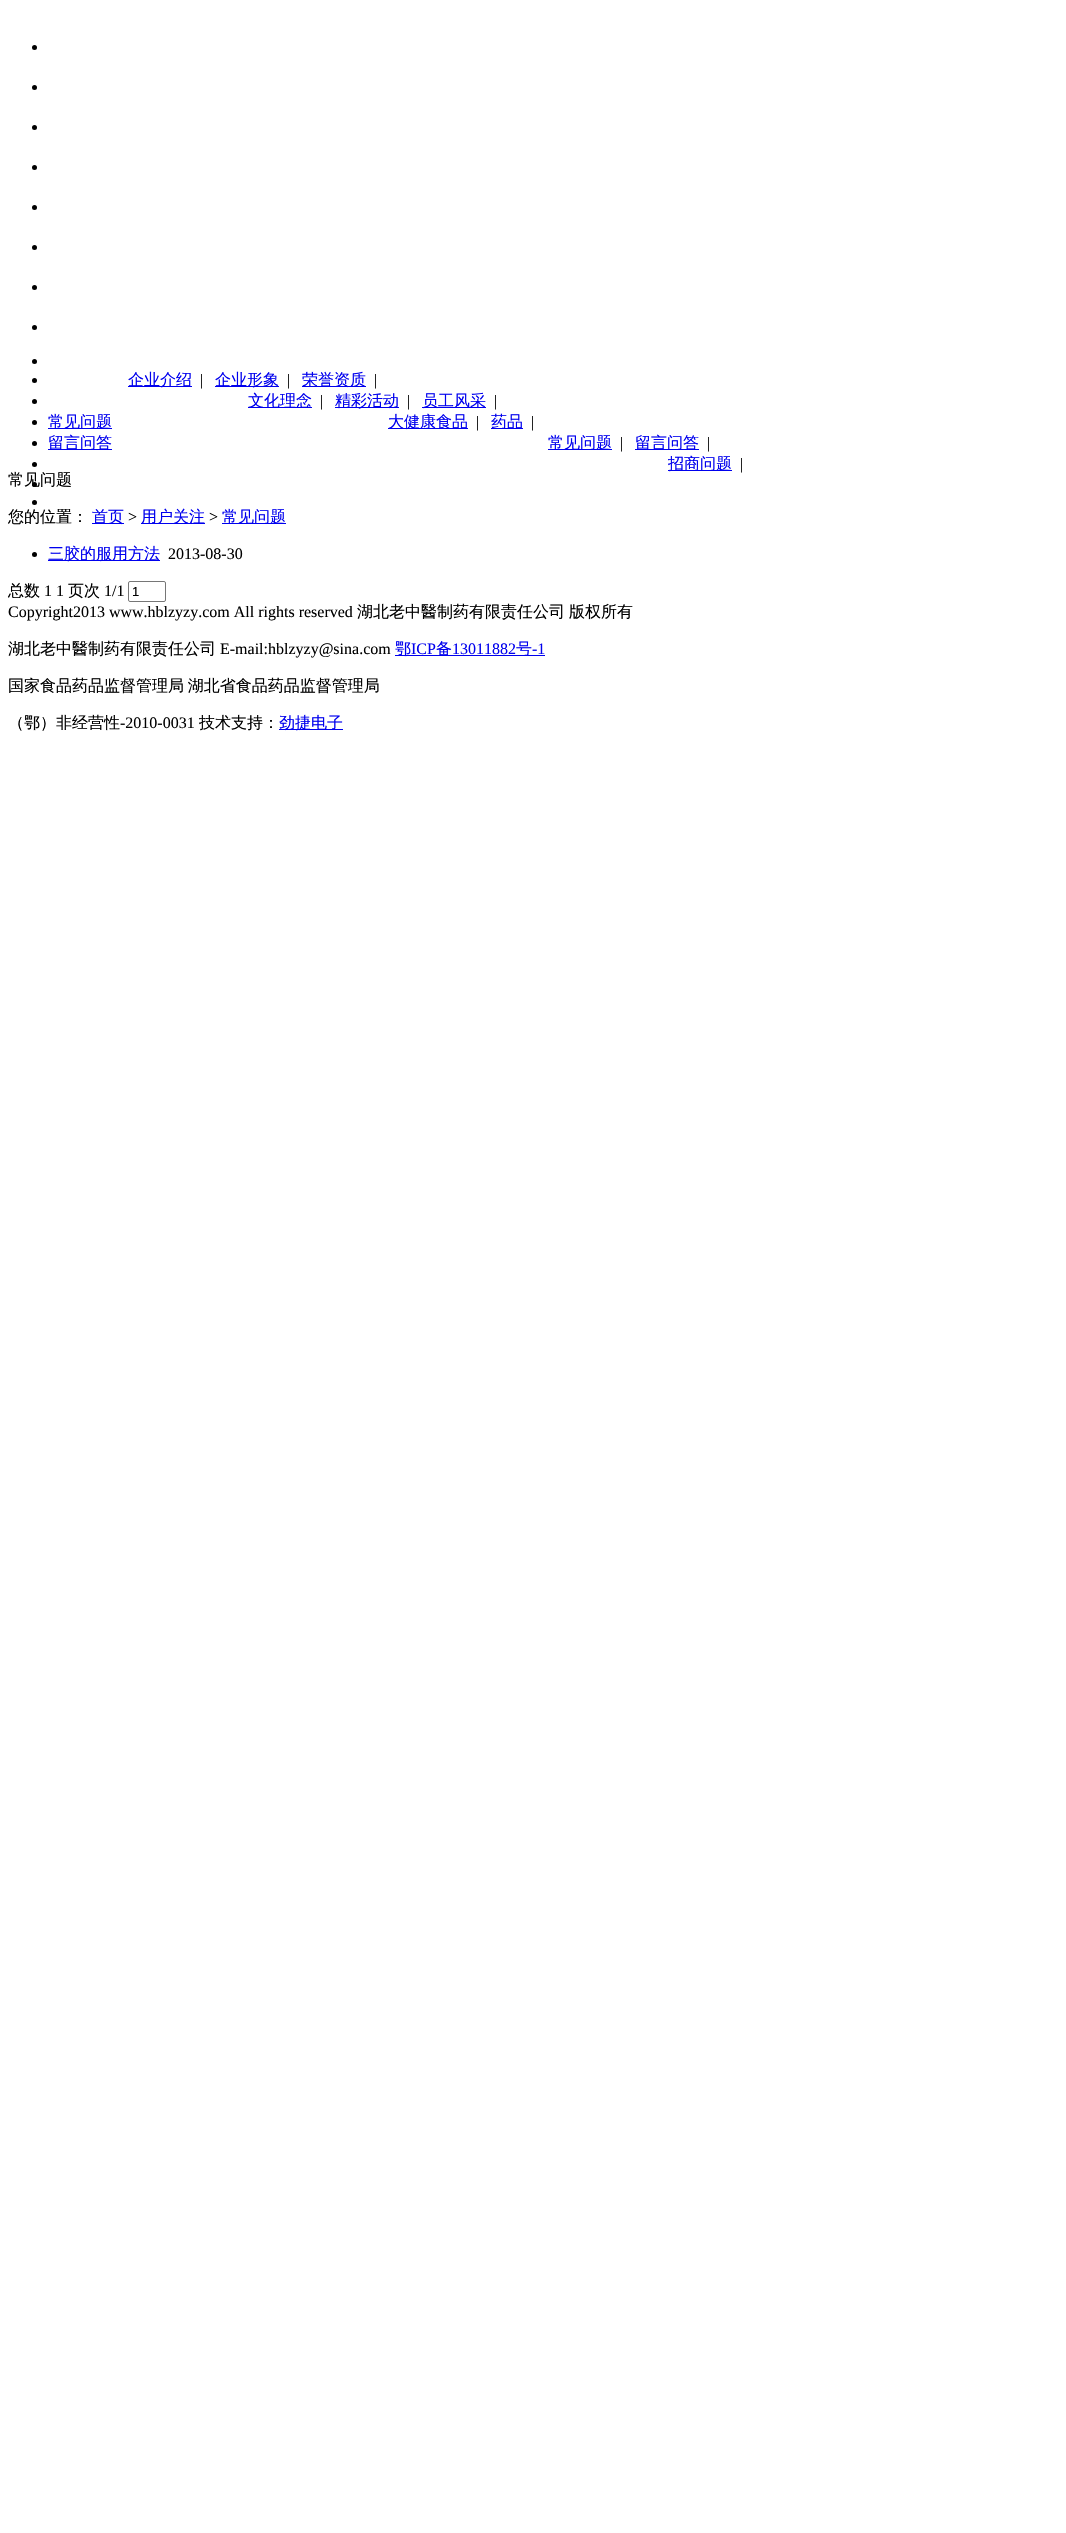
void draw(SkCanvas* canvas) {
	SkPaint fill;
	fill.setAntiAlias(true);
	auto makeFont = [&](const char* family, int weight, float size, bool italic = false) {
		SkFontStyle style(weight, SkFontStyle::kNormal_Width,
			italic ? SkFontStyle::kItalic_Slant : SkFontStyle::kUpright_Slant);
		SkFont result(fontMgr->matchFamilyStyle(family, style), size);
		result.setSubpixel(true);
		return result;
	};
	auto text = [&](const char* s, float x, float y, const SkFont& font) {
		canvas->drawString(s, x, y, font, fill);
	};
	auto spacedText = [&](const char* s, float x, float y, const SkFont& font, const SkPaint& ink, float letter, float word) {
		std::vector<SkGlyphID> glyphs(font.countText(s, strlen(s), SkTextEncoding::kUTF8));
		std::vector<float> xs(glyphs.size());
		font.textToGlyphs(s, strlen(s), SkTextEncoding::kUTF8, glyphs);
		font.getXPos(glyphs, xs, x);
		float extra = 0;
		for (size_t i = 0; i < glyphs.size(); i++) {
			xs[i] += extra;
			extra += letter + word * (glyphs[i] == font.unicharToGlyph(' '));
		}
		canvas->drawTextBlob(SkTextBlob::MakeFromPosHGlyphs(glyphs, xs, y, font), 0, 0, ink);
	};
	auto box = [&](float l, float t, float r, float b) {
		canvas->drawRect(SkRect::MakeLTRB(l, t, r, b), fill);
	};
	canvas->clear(0xFFFFFFFF);
	fill.setColor(0xFF000000);
	canvas->drawCircle(34.5f, 47.5f, 2.5f, fill);
	canvas->drawCircle(34.5f, 87.5f, 2.5f, fill);
	canvas->drawCircle(34.5f, 127.5f, 2.5f, fill);
	canvas->drawCircle(34.5f, 167.5f, 2.5f, fill);
	canvas->drawCircle(34.5f, 207.5f, 2.5f, fill);
	canvas->drawCircle(34.5f, 247.5f, 2.5f, fill);
	canvas->drawCircle(34.5f, 287.5f, 2.5f, fill);
	canvas->drawCircle(34.5f, 327.5f, 2.5f, fill);
	canvas->drawCircle(34.5f, 361.5f, 2.5f, fill);
	canvas->drawCircle(34.5f, 380.5f, 2.5f, fill);
	fill.setColor(0xFF0000EE);
	box(128, 386, 192, 387);
	box(215, 386, 279, 387);
	box(302, 386, 366, 387);
	fill.setColor(0xFF000000);
	canvas->drawCircle(34.5f, 401.5f, 2.5f, fill);
	fill.setColor(0xFF0000EE);
	box(248, 407, 312, 408);
	box(335, 407, 399, 408);
	box(422, 407, 486, 408);
	box(388, 428, 468, 429);
	box(491, 428, 523, 429);
	box(548, 449, 612, 450);
	box(635, 449, 699, 450);
	fill.setColor(0xFF000000);
	canvas->drawCircle(34.5f, 464.5f, 2.5f, fill);
	fill.setColor(0xFF0000EE);
	box(668, 470, 732, 471);
	fill.setColor(0xFF000000);
	canvas->drawCircle(34.5f, 484.5f, 2.5f, fill);
	canvas->drawCircle(34.5f, 502.5f, 2.5f, fill);
	canvas->drawCircle(34.5f, 422.5f, 2.5f, fill);
	fill.setColor(0xFF0000EE);
	box(48, 428, 112, 429);
	fill.setColor(0xFF000000);
	canvas->drawCircle(34.5f, 443.5f, 2.5f, fill);
	fill.setColor(0xFF0000EE);
	box(48, 449, 112, 450);
	box(92, 523, 124, 524);
	box(141, 523, 205, 524);
	box(222, 523, 286, 524);
	fill.setColor(0xFF000000);
	canvas->drawCircle(34.5f, 554.5f, 2.5f, fill);
	fill.setColor(0xFF0000EE);
	box(48, 560, 160, 561);
	fill.setStyle(SkPaint::kStroke_Style);
	fill.setStrokeWidth(1);
	fill.setColor(0xFF767676);
	canvas->drawRoundRect(SkRect::MakeLTRB(128.5f, 581.5f, 165.5f, 601.5f), 1.5f, 1.5f, fill);
	fill.setStyle(SkPaint::kFill_Style);
	fill.setColor(0xFF0000EE);
	box(395, 655, 545, 656);
	box(279, 729, 343, 730);
	auto font1 = makeFont("WenQuanYi Zen Hei", 500, 16);
	text("企业介绍", 128, 385, font1);
	auto font2 = makeFont("Liberation Serif", 400, 16);
	fill.setColor(0xFF000000);
	text("|", 200, 385, font2);
	fill.setColor(0xFF0000EE);
	text("企业形象", 215, 385, font1);
	fill.setColor(0xFF000000);
	text("|", 287, 385, font2);
	fill.setColor(0xFF0000EE);
	text("荣誉资质", 302, 385, font1);
	fill.setColor(0xFF000000);
	text("|", 374, 385, font2);
	fill.setColor(0xFF0000EE);
	text("文化理念", 248, 406, font1);
	fill.setColor(0xFF000000);
	text("|", 320, 406, font2);
	fill.setColor(0xFF0000EE);
	text("精彩活动", 335, 406, font1);
	fill.setColor(0xFF000000);
	text("|", 407, 406, font2);
	fill.setColor(0xFF0000EE);
	text("员工风采", 422, 406, font1);
	fill.setColor(0xFF000000);
	text("|", 494, 406, font2);
	fill.setColor(0xFF0000EE);
	text("大健康食品", 388, 427, font1);
	fill.setColor(0xFF000000);
	text("|", 476, 427, font2);
	fill.setColor(0xFF0000EE);
	text("药品", 491, 427, font1);
	fill.setColor(0xFF000000);
	text("|", 531, 427, font2);
	fill.setColor(0xFF0000EE);
	text("常见问题", 548, 448, font1);
	fill.setColor(0xFF000000);
	text("|", 620, 448, font2);
	fill.setColor(0xFF0000EE);
	text("留言问答", 635, 448, font1);
	fill.setColor(0xFF000000);
	text("|", 707, 448, font2);
	fill.setColor(0xFF0000EE);
	text("招商问题", 668, 469, font1);
	fill.setColor(0xFF000000);
	text("|", 740, 469, font2);
	fill.setColor(0xFF0000EE);
	text("常见问题", 48, 427, font1);
	text("留言问答", 48, 448, font1);
	fill.setColor(0xFF000000);
	text("常见问题", 8, 485, font1);
	text("您的位置：", 8, 522, font1);
	fill.setColor(0xFF0000EE);
	text("首页", 92, 522, font1);
	fill.setColor(0xFF000000);
	text(">", 128, 522, font2);
	fill.setColor(0xFF0000EE);
	text("用户关注", 141, 522, font1);
	fill.setColor(0xFF000000);
	text(">", 209, 522, font2);
	fill.setColor(0xFF0000EE);
	text("常见问题", 222, 522, font1);
	text("三胶的服用方法", 48, 559, font1);
	fill.setColor(0xFF000000);
	text("2013-08-30", 168, 559, font2);
	text("总数", 8, 596, font1);
	text("1 1", 44, 596, font2);
	text("页次", 68, 596, font1);
	text("1/1", 104, 596, font2);
	auto font3 = makeFont("Liberation Sans", 400, 13);
	text("1", 132, 596, font3);
	text("Copyright2013 www.hblzyzy.com All rights reserved", 8, 617, font2);
	text("湖北老中醫制药有限责任公司", 357, 617, font1);
	text("版权所有", 569, 617, font1);
	text("湖北老中醫制药有限责任公司", 8, 654, font1);
	text("E-mail:hblzyzy@sina.com", 220, 654, font2);
	fill.setColor(0xFF0000EE);
	text("鄂", 395, 654, font1);
	text("ICP", 411, 654, font2);
	text("备", 436, 654, font1);
	text("13011882", 452, 654, font2);
	text("号", 516, 654, font1);
	text("-1", 532, 654, font2);
	fill.setColor(0xFF000000);
	spacedText("国家食品药品监督管理局 湖北省食品药品监督管理局", 8, 691, font1, fill, 0, -1);
	text("（鄂）非经营性", 8, 728, font1);
	text("-2010-0031", 120, 728, font2);
	text("技术支持：", 199, 728, font1);
	fill.setColor(0xFF0000EE);
	text("劲捷电子", 279, 728, font1);
}
